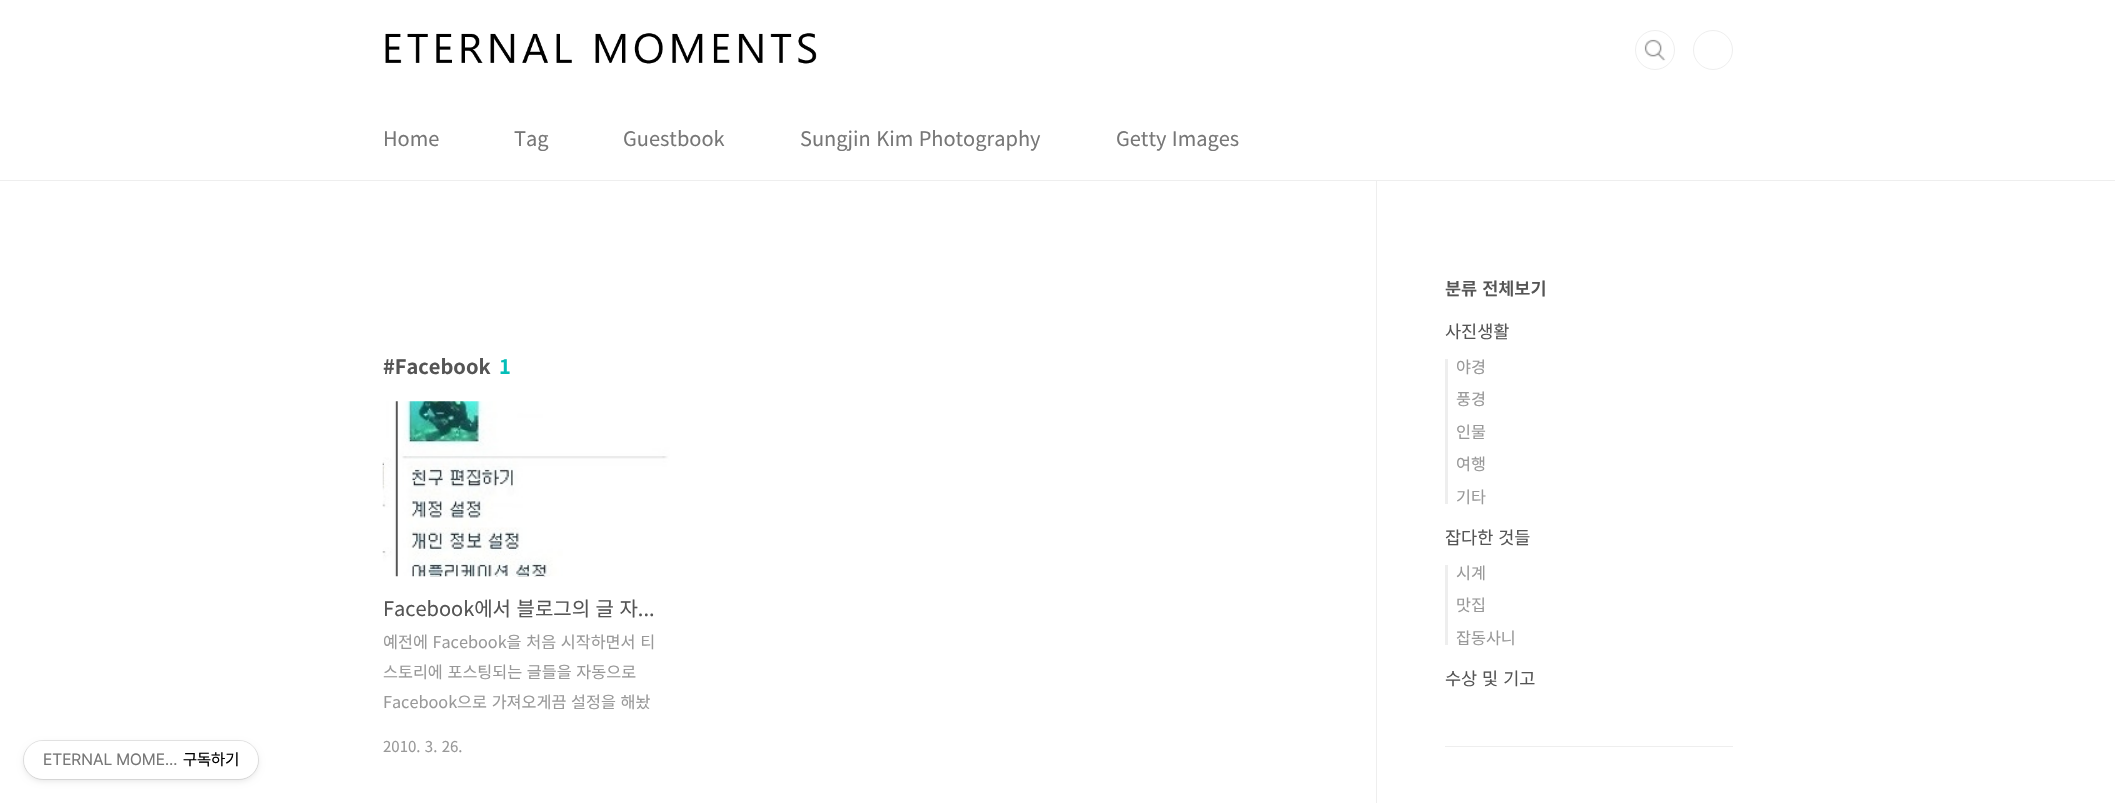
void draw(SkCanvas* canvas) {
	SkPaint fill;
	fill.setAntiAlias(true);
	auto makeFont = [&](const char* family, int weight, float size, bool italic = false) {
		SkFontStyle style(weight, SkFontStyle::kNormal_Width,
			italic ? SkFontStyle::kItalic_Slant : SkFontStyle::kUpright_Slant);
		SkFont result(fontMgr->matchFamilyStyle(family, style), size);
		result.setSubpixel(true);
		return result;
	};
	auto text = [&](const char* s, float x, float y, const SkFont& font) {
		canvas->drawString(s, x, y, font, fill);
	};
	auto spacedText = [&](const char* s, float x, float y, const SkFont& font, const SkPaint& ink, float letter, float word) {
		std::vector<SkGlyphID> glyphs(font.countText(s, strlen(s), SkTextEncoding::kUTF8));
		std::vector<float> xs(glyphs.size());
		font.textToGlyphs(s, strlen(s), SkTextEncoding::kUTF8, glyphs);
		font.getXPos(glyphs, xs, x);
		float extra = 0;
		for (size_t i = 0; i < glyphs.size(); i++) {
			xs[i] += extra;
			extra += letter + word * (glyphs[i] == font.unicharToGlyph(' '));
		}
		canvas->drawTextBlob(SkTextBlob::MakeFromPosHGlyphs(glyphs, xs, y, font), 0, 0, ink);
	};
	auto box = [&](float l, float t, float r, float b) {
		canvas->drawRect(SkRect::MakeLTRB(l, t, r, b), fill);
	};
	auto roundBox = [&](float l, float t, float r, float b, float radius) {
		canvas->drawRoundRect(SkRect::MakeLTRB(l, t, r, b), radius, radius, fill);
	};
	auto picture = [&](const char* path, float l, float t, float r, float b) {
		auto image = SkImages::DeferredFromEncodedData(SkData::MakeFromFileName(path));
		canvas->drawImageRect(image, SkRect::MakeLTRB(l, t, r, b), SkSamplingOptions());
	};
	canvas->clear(0xFFFFFFFF);
	fill.setColor(0xFFEEEEEE);
	box(0, 180, 2115, 181);
	picture("image0.png", 385, 33, 817, 64);
	fill.setStyle(SkPaint::kStroke_Style);
	fill.setStrokeWidth(1);
	canvas->drawCircle(1655, 50, 18.5f, fill);
	fill.setStyle(SkPaint::kFill_Style);
	fill.setColor(0xFFFFFFFF);
	canvas->drawCircle(1655, 50, 20, fill);
	picture("image1.png", 1644, 39, 1666, 61);
	fill.setStyle(SkPaint::kStroke_Style);
	fill.setColor(0xFFEEEEEE);
	canvas->drawCircle(1655, 50, 19.5f, fill);
	canvas->drawCircle(1713, 50, 19.5f, fill);
	picture("image2.png", 382, 401, 670, 577);
	fill.setStyle(SkPaint::kFill_Style);
	box(1376, 181, 1377, 803);
	box(1445, 359, 1448, 504);
	box(1445, 565, 1448, 645);
	box(1445, 746, 1733, 747);
	fill.setColor(0x1A000000);
	fill.setMaskFilter(SkMaskFilter::MakeBlur(kNormal_SkBlurStyle, 3));
	canvas->drawRoundRect(SkRect::MakeLTRB(24, 744, 258, 781), 18.5f, 18.5f, fill);
	fill.setMaskFilter(nullptr);
	fill.setStyle(SkPaint::kStroke_Style);
	canvas->drawRoundRect(SkRect::MakeLTRB(23.5f, 740.5f, 258.5f, 779.5f), 19.5f, 19.5f, fill);
	fill.setStyle(SkPaint::kFill_Style);
	fill.setColor(0xFFFFFFFF);
	roundBox(24, 741, 258, 779, 19);
	auto font1 = makeFont("Noto Sans KR", 400, 20);
	fill.setColor(0xFF777777);
	text("Home", 383, 146, font1);
	text("Tag", 514, 146, font1);
	text("Guestbook", 623, 146, font1);
	spacedText("Sungjin Kim Photography", 800, 146, font1, fill, 0, 1);
	spacedText("Getty Images", 1116, 146, font1, fill, 0, 1);
	auto font2 = makeFont("Noto Sans KR", 700, 20);
	fill.setColor(0xFF555555);
	text("#Facebook", 383, 374, font2);
	fill.setColor(0xFF04BEB8);
	text("1", 499, 374, font2);
	fill.setColor(0xFF555555);
	spacedText("Facebook에서 블로그의 글 자...", 383, 616, font1, fill, 0, 1);
	auto font3 = makeFont("Noto Sans KR", 400, 16.25f);
	fill.setColor(0xFF999999);
	spacedText("예전에 Facebook을 처음 시작하면서 티", 383, 648, font3, fill, 0, 1);
	spacedText("스토리에 포스팅되는 글들을 자동으로", 383, 678, font3, fill, 0, 1);
	spacedText("Facebook으로 가져오게끔 설정을 해놨", 383, 708, font3, fill, 0, 1);
	auto font4 = makeFont("Noto Sans KR", 400, 15);
	spacedText("2010. 3. 26.", 383, 752, font4, fill, 0, 1);
	auto font5 = makeFont("Noto Sans KR", 600, 17.5f);
	fill.setColor(0xFF555555);
	spacedText("분류 전체보기", 1445, 295, font5, fill, 0, 1);
	auto font6 = makeFont("Noto Sans KR", 400, 17.5f);
	text("사진생활", 1445, 338, font6);
	fill.setColor(0xFF999999);
	text("야경", 1456, 373, font3);
	text("풍경", 1456, 405, font3);
	text("인물", 1456, 438, font3);
	text("여행", 1456, 470, font3);
	text("기타", 1456, 503, font3);
	fill.setColor(0xFF555555);
	spacedText("잡다한 것들", 1445, 544, font6, fill, 0, 1);
	fill.setColor(0xFF999999);
	text("시계", 1456, 579, font3);
	text("맛집", 1456, 611, font3);
	text("잡동사니", 1456, 644, font3);
	fill.setColor(0xFF555555);
	spacedText("수상 및 기고", 1445, 685, font6, fill, 0, 1);
	auto font7 = makeFont("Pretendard", 400, 16.25f);
	fill.setColor(0xFF777777);
	text("ETERNAL MOME…", 43, 765, font7);
	fill.setColor(0xFF000000);
	text("구독하기", 183, 765, font7);
}
